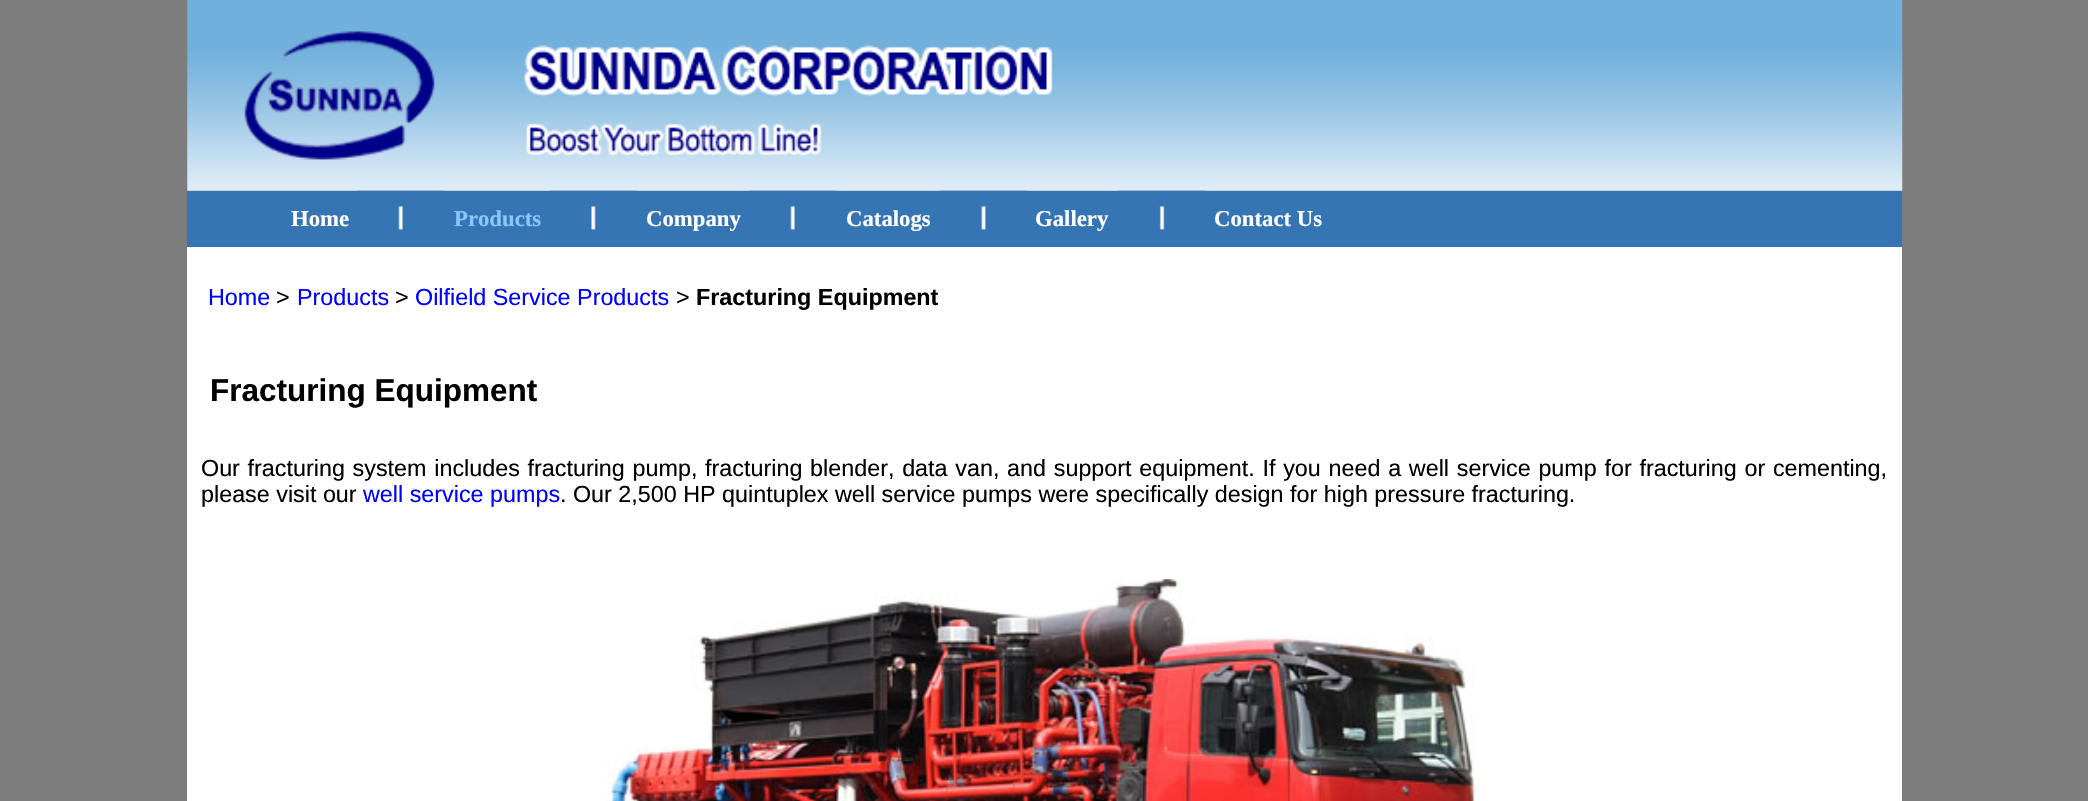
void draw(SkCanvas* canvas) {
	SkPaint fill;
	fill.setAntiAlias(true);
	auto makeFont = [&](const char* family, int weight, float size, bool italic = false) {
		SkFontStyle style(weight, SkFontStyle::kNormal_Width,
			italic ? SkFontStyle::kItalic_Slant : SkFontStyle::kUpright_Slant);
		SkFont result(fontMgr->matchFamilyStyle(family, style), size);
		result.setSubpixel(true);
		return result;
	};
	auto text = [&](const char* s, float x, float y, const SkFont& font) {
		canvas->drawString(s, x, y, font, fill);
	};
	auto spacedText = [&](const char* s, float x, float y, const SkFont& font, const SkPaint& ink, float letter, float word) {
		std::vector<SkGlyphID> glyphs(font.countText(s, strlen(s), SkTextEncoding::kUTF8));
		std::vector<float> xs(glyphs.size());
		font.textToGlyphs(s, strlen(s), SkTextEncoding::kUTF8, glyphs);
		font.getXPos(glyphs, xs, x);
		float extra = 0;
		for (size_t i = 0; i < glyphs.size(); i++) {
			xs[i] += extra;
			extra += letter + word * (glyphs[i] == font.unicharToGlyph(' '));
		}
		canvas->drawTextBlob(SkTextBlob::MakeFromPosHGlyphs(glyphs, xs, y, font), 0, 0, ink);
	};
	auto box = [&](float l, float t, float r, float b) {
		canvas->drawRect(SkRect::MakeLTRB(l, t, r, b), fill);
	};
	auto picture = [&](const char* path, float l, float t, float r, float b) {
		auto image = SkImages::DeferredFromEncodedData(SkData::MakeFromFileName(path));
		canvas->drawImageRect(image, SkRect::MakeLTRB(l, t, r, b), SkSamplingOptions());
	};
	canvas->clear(0xFF7D7D7D);
	picture("image0.png", 187, 0, 1903, 191);
	fill.setColor(0xFF3575B3);
	box(187, 191, 1902, 247);
	picture("image1.png", 357, 190, 445, 230);
	picture("image2.png", 549, 190, 637, 230);
	picture("image1.png", 749, 190, 837, 230);
	picture("image3.png", 939, 190, 1028, 230);
	picture("image4.png", 1118, 190, 1206, 230);
	fill.setColor(0xFFFFFFFF);
	box(187, 247, 1902, 801);
	picture("image5.png", 607, 579, 1476, 801);
	auto font1 = makeFont("Liberation Serif", 700, 22.75f);
	text("Home", 291, 226, font1);
	fill.setColor(0xFF8BC6FF);
	text("Products", 454, 226, font1);
	fill.setColor(0xFFFFFFFF);
	text("Company", 646, 226, font1);
	text("Catalogs", 846, 226, font1);
	text("Gallery", 1035, 226, font1);
	text("Contact Us", 1214, 226, font1);
	auto font2 = makeFont("Liberation Sans", 400, 23.33f);
	fill.setColor(0xFF0000FF);
	text("Home", 208, 305, font2);
	fill.setColor(0xFF000000);
	text(">", 276, 305, font2);
	fill.setColor(0xFF0000FF);
	text("Products", 297, 305, font2);
	fill.setColor(0xFF000000);
	text(">", 395, 305, font2);
	fill.setColor(0xFF0000FF);
	text("Oilfield Service Products", 415, 305, font2);
	fill.setColor(0xFF000000);
	text(">", 676, 305, font2);
	auto font3 = makeFont("Liberation Sans", 700, 23.33f);
	text("Fracturing Equipment", 696, 305, font3);
	auto font4 = makeFont("Liberation Sans", 700, 31.5f);
	text("Fracturing Equipment", 210, 401, font4);
	spacedText("Our fracturing system includes fracturing pump, fracturing blender, data van, and support equipment. If you need a well service pump for fracturing or cementing,", 201, 476, font2, fill, 0, 1.25f);
	text("please visit our", 201, 502, font2);
	fill.setColor(0xFF0000FF);
	text("well service pumps", 363, 502, font2);
	fill.setColor(0xFF000000);
	text(". Our 2,500 HP quintuplex well service pumps were specifically design for high pressure fracturing.", 560, 502, font2);
}
